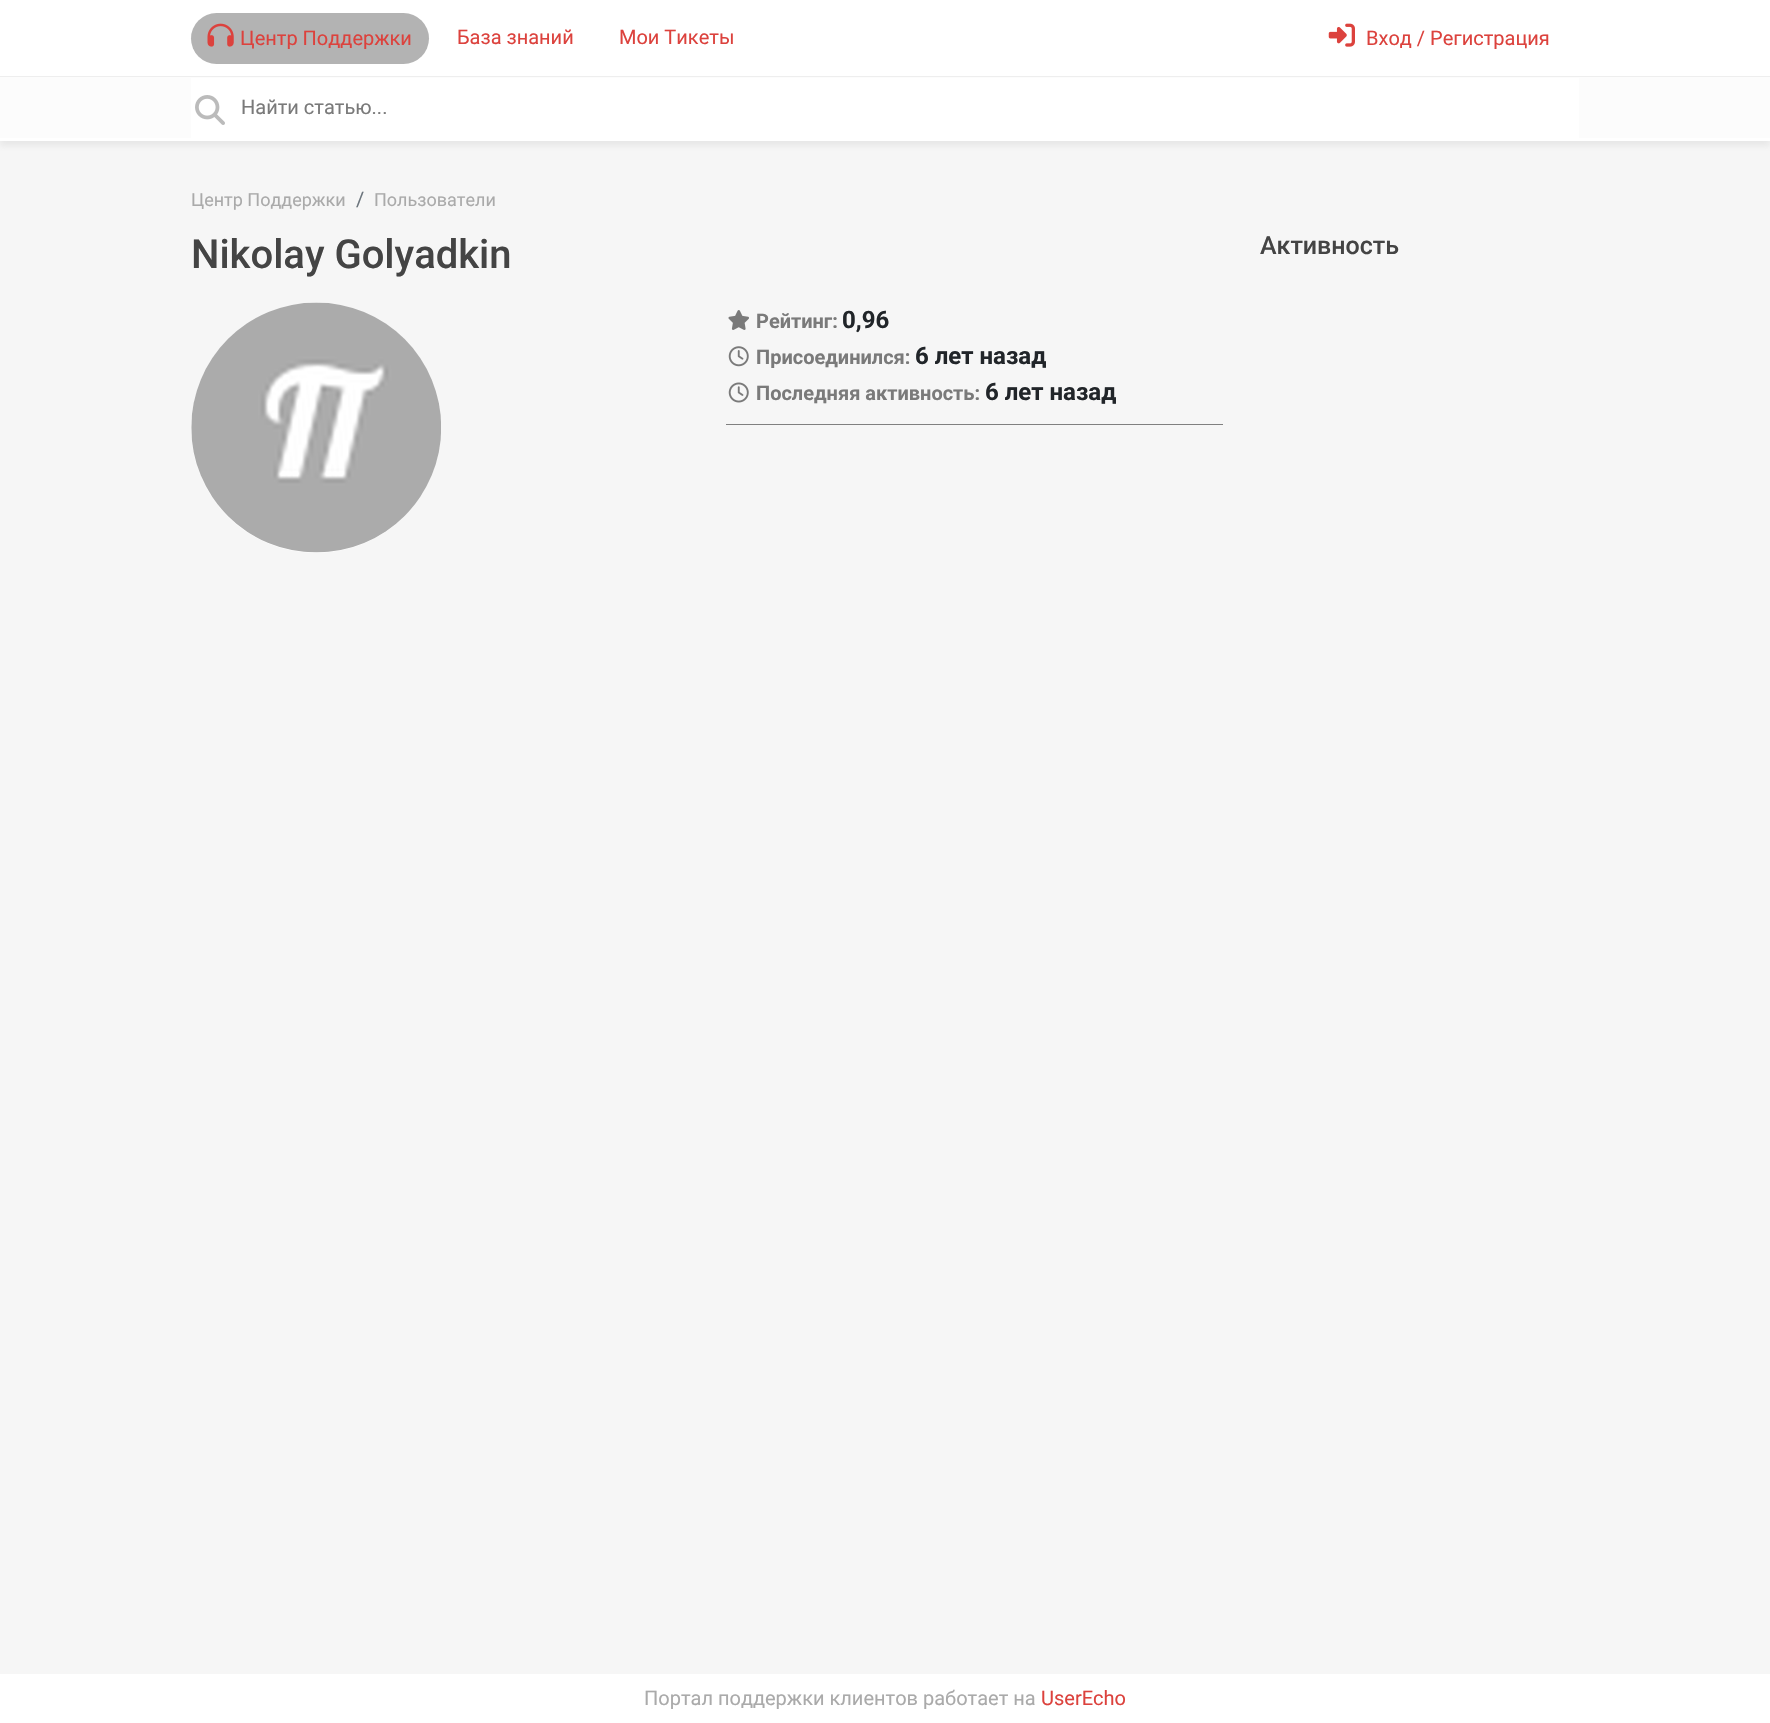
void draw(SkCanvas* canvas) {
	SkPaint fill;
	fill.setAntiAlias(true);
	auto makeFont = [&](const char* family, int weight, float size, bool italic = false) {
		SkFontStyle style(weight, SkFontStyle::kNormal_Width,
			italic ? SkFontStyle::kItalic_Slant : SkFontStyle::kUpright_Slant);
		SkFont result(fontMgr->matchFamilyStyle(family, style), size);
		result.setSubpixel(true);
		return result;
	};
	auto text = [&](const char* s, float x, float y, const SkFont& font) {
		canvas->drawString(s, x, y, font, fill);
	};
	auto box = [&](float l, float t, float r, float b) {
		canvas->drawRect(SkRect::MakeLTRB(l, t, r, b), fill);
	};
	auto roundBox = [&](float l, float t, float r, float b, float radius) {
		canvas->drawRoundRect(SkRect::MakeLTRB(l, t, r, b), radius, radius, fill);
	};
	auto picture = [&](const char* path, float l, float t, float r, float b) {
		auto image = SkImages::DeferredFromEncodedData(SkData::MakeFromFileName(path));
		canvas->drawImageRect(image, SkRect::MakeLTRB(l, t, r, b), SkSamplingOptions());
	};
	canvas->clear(0xFFF6F6F6);
	fill.setColor(0xFFFFFFFF);
	box(0, 0, 1770, 76);
	fill.setColor(0xFFB3B3B3);
	roundBox(191, 13, 429, 64, 25.5f);
	picture("image0.png", 207, 23, 234, 47);
	picture("image1.png", 1328, 23, 1355, 47);
	fill.setColor(0x1A646464);
	fill.setMaskFilter(SkMaskFilter::MakeBlur(kNormal_SkBlurStyle, 3));
	canvas->drawRect(SkRect::MakeLTRB(0, 83, 1770, 146), fill);
	fill.setMaskFilter(nullptr);
	fill.setColor(0xFFFCFCFC);
	box(0, 77, 1770, 138);
	fill.setColor(0xFFEEEEEE);
	box(0, 76, 1770, 77);
	fill.setColor(0xFFFFFFFF);
	box(0, 138, 1770, 141);
	box(191, 78, 1579, 138);
	picture("image2.png", 195, 95, 225, 125);
	canvas->drawCircle(316, 428, 125, fill);
	picture("image3.png", 191, 302, 441, 553);
	picture("image4.png", 728, 310, 749, 330);
	picture("image5.png", 728, 346, 749, 367);
	picture("image6.png", 728, 382, 749, 403);
	fill.setColor(0xFF808080);
	box(726, 424, 1223, 425);
	fill.setColor(0xFFFFFFFF);
	box(0, 1674, 1770, 1723);
	auto font1 = makeFont("Roboto", 400, 20);
	fill.setColor(0xFFDC423D);
	text("Центр Поддержки", 240, 45, font1);
	text("База знаний", 457, 44, font1);
	text("Мои Тикеты", 619, 44, font1);
	text("Вход / Регистрация", 1366, 45, font1);
	fill.setColor(0xFF7A7A7A);
	text("Найти статью...", 241, 114, font1);
	auto font2 = makeFont("Roboto", 400, 18);
	fill.setColor(0xFFAAAAAA);
	text("Центр Поддержки", 191, 206, font2);
	fill.setColor(0xFF6C757D);
	text("/", 356, 206, font1);
	fill.setColor(0xFFAAAAAA);
	text("Пользователи", 374, 206, font2);
	auto font3 = makeFont("Roboto", 500, 40);
	fill.setColor(0xFF444444);
	text("Nikolay Golyadkin", 191, 268, font3);
	auto font4 = makeFont("Roboto", 700, 20);
	fill.setColor(0xFF7A7A7A);
	text("Рейтинг:", 756, 328, font4);
	auto font5 = makeFont("Roboto", 700, 24);
	fill.setColor(0xFF212529);
	text("0,96", 842, 328, font5);
	fill.setColor(0xFF7A7A7A);
	text("Присоединился:", 756, 364, font4);
	fill.setColor(0xFF212529);
	text("6 лет назад", 915, 364, font5);
	fill.setColor(0xFF7A7A7A);
	text("Последняя активность:", 756, 400, font4);
	fill.setColor(0xFF212529);
	text("6 лет назад", 985, 400, font5);
	auto font6 = makeFont("Roboto", 500, 25);
	fill.setColor(0xFF444444);
	text("Активность", 1260, 254, font6);
	fill.setColor(0xFFAAAAAA);
	text("Портал поддержки клиентов работает на", 644, 1705, font1);
	fill.setColor(0xFFDC423D);
	text("UserEcho", 1041, 1705, font1);
}
